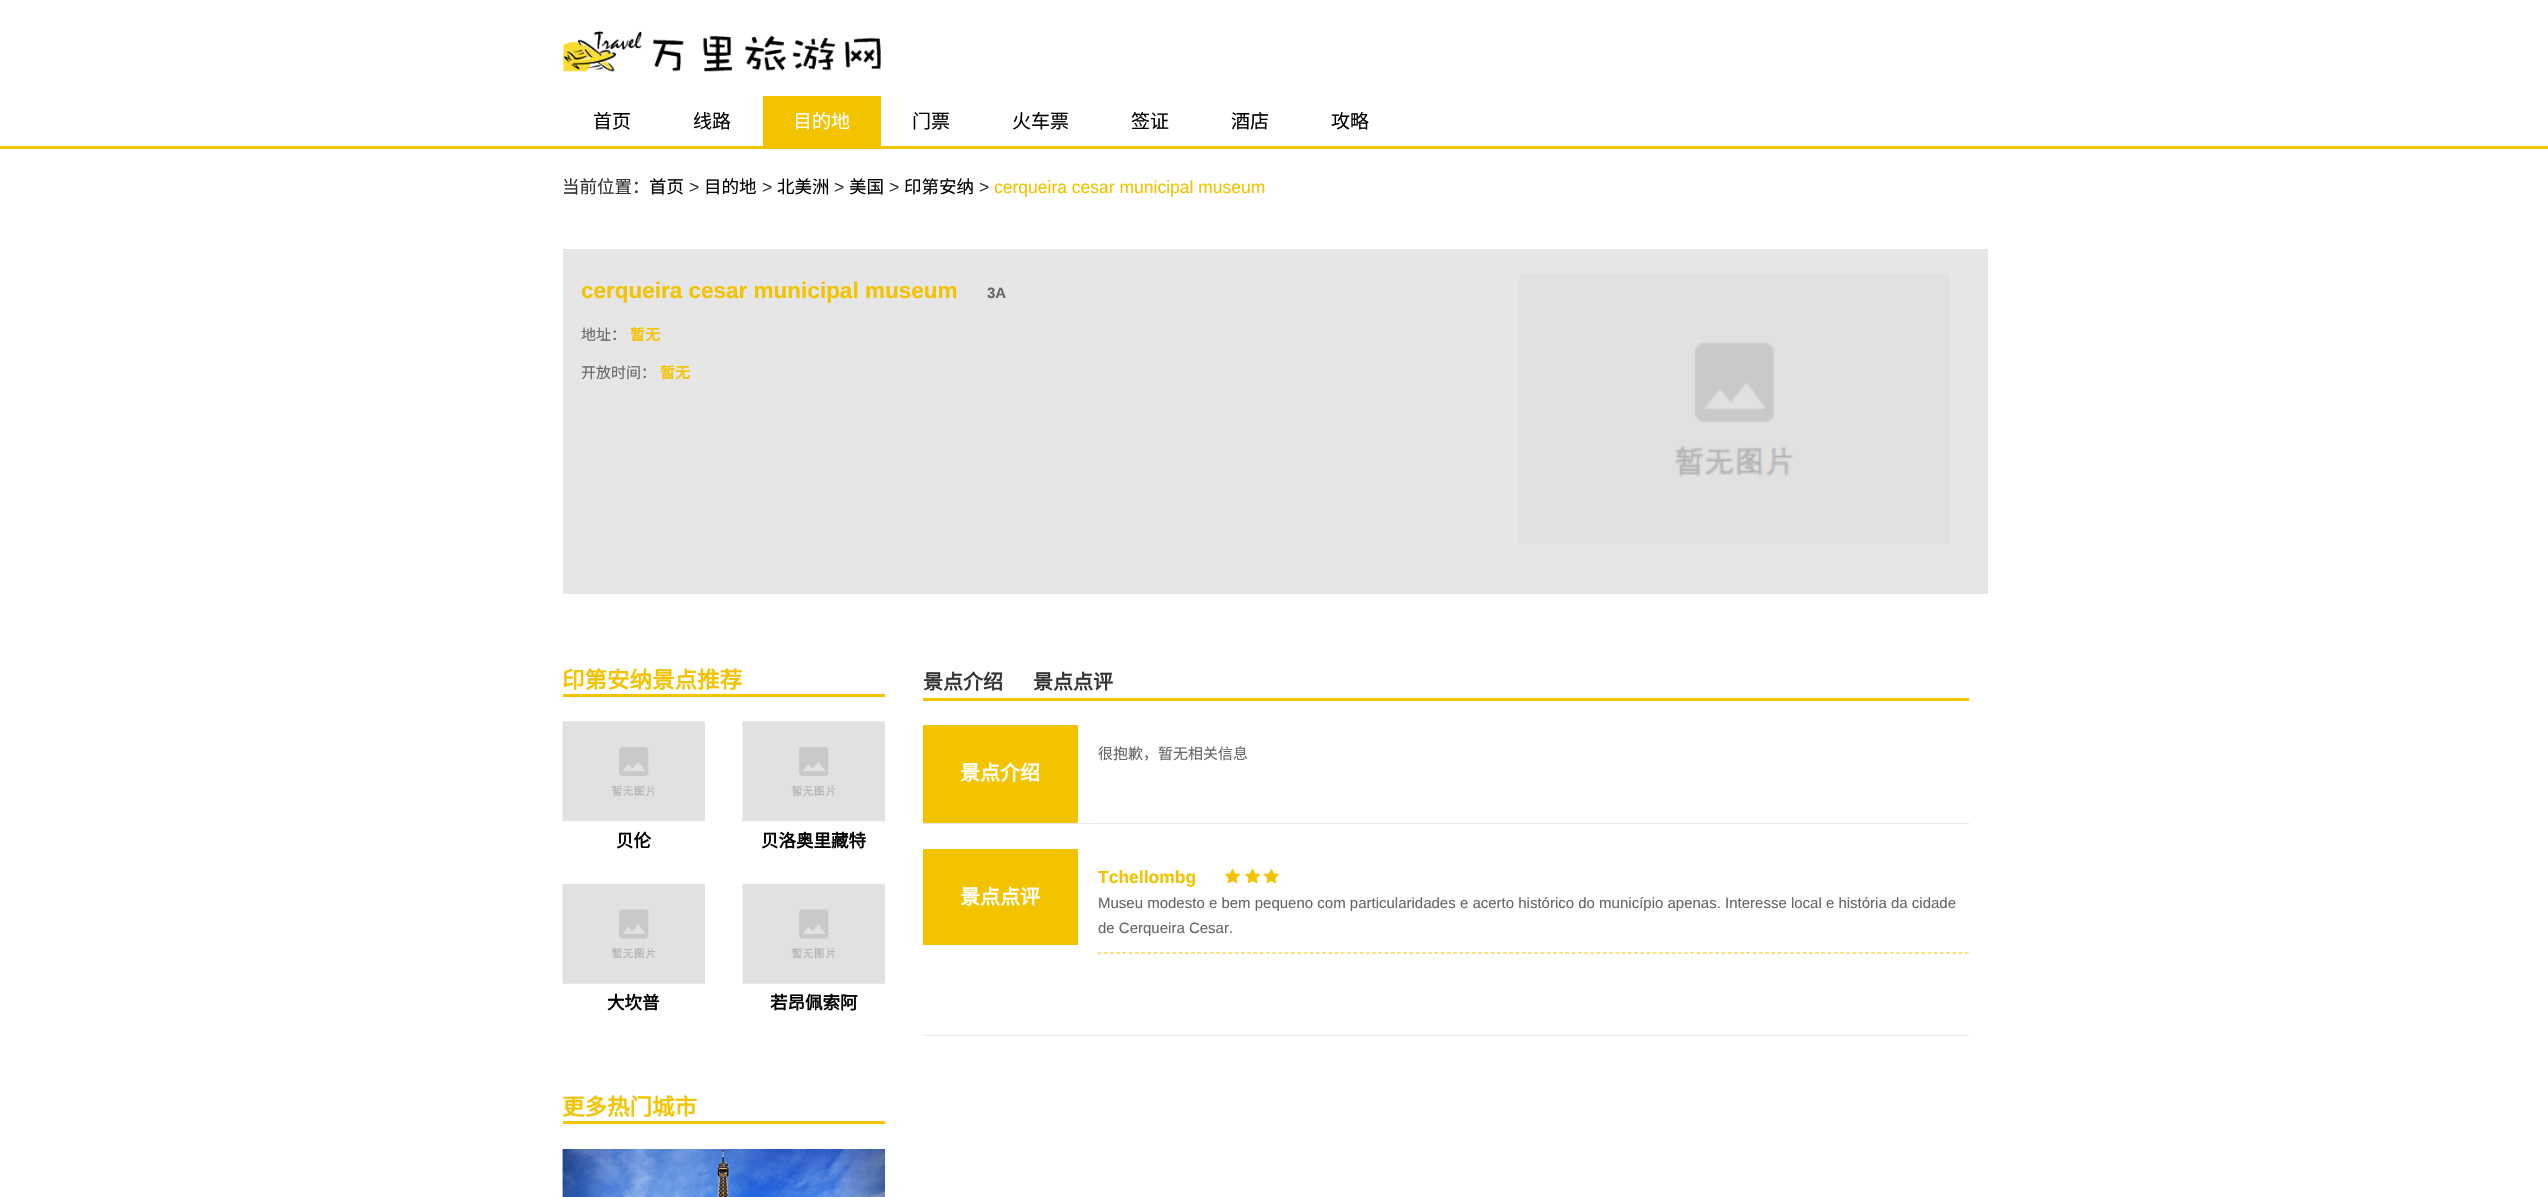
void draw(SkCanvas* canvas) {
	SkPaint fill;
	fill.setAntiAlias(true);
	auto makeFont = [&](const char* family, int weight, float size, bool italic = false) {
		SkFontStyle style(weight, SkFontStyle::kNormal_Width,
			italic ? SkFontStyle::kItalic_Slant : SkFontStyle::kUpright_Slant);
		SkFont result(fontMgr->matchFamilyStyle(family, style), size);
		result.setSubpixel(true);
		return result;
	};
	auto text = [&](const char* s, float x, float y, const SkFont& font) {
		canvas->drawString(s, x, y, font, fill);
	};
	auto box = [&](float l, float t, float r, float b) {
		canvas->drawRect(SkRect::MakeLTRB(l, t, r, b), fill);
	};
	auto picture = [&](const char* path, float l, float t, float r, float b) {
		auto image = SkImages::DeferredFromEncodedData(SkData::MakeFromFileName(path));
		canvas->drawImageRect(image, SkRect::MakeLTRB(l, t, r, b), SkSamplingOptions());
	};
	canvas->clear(0xFFFFFFFF);
	picture("image0.png", 563, 31, 881, 72);
	fill.setColor(0xFFF3C300);
	box(763, 96, 881, 146);
	box(0, 146, 2548, 149);
	fill.setColor(0xFFE7E6E6);
	box(563, 249, 1988, 594);
	picture("image1.png", 1519, 274, 1950, 544);
	fill.setColor(0xFFF3C300);
	box(563, 694, 885, 697);
	picture("image2.png", 562, 721, 705, 822);
	picture("image2.png", 742, 721, 885, 822);
	picture("image3.png", 562, 883, 705, 984);
	picture("image3.png", 742, 883, 885, 984);
	box(563, 1121, 885, 1124);
	picture("image4.png", 562, 1149, 885, 1197);
	box(923, 698, 1969, 701);
	fill.setColor(0xFFE7E6E6);
	box(923, 823, 1969, 824);
	fill.setColor(0xFFF3C300);
	box(923, 725, 1078, 823);
	fill.setColor(0xFFE7E6E6);
	box(923, 1035, 1969, 1036);
	fill.setColor(0xFFF3C300);
	box(923, 849, 1078, 945);
	fill.setStyle(SkPaint::kStroke_Style);
	fill.setStrokeWidth(1.2f);
	fill.setPathEffect(SkDashPathEffect::Make({{3.75f, 2.49f}}, 0));
	canvas->drawPath(SkPathBuilder().moveTo(1097.5f, 953).lineTo(1969, 953).detach(), fill);
	fill.setPathEffect(nullptr);
	picture("image5.png", 1225, 868, 1240, 884);
	picture("image5.png", 1245, 868, 1260, 884);
	picture("image6.png", 1263, 868, 1279, 884);
	auto font1 = makeFont("Noto Sans CJK SC", 400, 19);
	fill.setStyle(SkPaint::kFill_Style);
	fill.setColor(0xFF000000);
	text("首页", 593, 128, font1);
	text("线路", 693, 128, font1);
	fill.setColor(0xFFFFFFFF);
	text("目的地", 793, 128, font1);
	fill.setColor(0xFF000000);
	text("门票", 912, 128, font1);
	text("火车票", 1012, 128, font1);
	text("签证", 1131, 128, font1);
	text("酒店", 1231, 128, font1);
	text("攻略", 1331, 128, font1);
	auto font2 = makeFont("Noto Sans CJK SC", 400, 17.5f);
	fill.setColor(0xFF333333);
	text("当前位置：", 562, 193, font2);
	fill.setColor(0xFF000000);
	text("首页", 649, 193, font2);
	auto font3 = makeFont("Liberation Sans", 400, 17.5f);
	fill.setColor(0xFF333333);
	text(">", 689, 193, font3);
	fill.setColor(0xFF000000);
	text("目的地", 704, 193, font2);
	fill.setColor(0xFF333333);
	text(">", 762, 193, font3);
	fill.setColor(0xFF000000);
	text("北美洲", 777, 193, font2);
	fill.setColor(0xFF333333);
	text(">", 834, 193, font3);
	fill.setColor(0xFF000000);
	text("美国", 849, 193, font2);
	fill.setColor(0xFF333333);
	text(">", 889, 193, font3);
	fill.setColor(0xFF000000);
	text("印第安纳", 904, 193, font2);
	fill.setColor(0xFF333333);
	text(">", 979, 193, font3);
	fill.setColor(0xFFF3C300);
	text("cerqueira cesar municipal museum", 994, 193, font3);
	auto font4 = makeFont("Liberation Sans", 700, 22.5f);
	text("cerqueira cesar municipal museum", 581, 298, font4);
	auto font5 = makeFont("Liberation Sans", 700, 15);
	fill.setColor(0xFF666666);
	text("3A", 987, 298, font5);
	auto font6 = makeFont("Noto Sans CJK SC", 400, 15);
	text("地址：", 581, 340, font6);
	auto font7 = makeFont("Noto Sans CJK SC", 700, 15);
	fill.setColor(0xFFF3C300);
	text("暂无", 630, 340, font7);
	fill.setColor(0xFF666666);
	text("开放时间：", 581, 378, font6);
	fill.setColor(0xFFF3C300);
	text("暂无", 660, 378, font7);
	auto font8 = makeFont("Noto Sans CJK SC", 700, 22.5f);
	text("印第安纳景点推荐", 562, 688, font8);
	auto font9 = makeFont("Noto Sans CJK SC", 700, 17.5f);
	fill.setColor(0xFF000000);
	text("贝伦", 616, 847, font9);
	text("贝洛奥里藏特", 761, 847, font9);
	text("大坎普", 607, 1009, font9);
	text("若昂佩索阿", 770, 1009, font9);
	fill.setColor(0xFFF3C300);
	text("更多热门城市", 562, 1115, font8);
	auto font10 = makeFont("Noto Sans CJK SC", 700, 20);
	fill.setColor(0xFF333333);
	text("景点介绍", 923, 689, font10);
	text("景点点评", 1033, 689, font10);
	fill.setColor(0xFF666666);
	text("很抱歉，暂无相关信息", 1098, 759, font6);
	fill.setColor(0xFFFFFFFF);
	text("景点介绍", 960, 780, font10);
	text("景点点评", 960, 904, font10);
	auto font11 = makeFont("Liberation Sans", 700, 17.5f);
	fill.setColor(0xFFF3C300);
	text("Tchellombg", 1098, 883, font11);
	auto font12 = makeFont("Liberation Sans", 400, 15);
	fill.setColor(0xFF666666);
	text("Museu modesto e bem pequeno com particularidades e acerto histórico do município apenas. Interesse local e história da cidade", 1098, 908, font12);
	text("de Cerqueira Cesar.", 1098, 933, font12);
}
